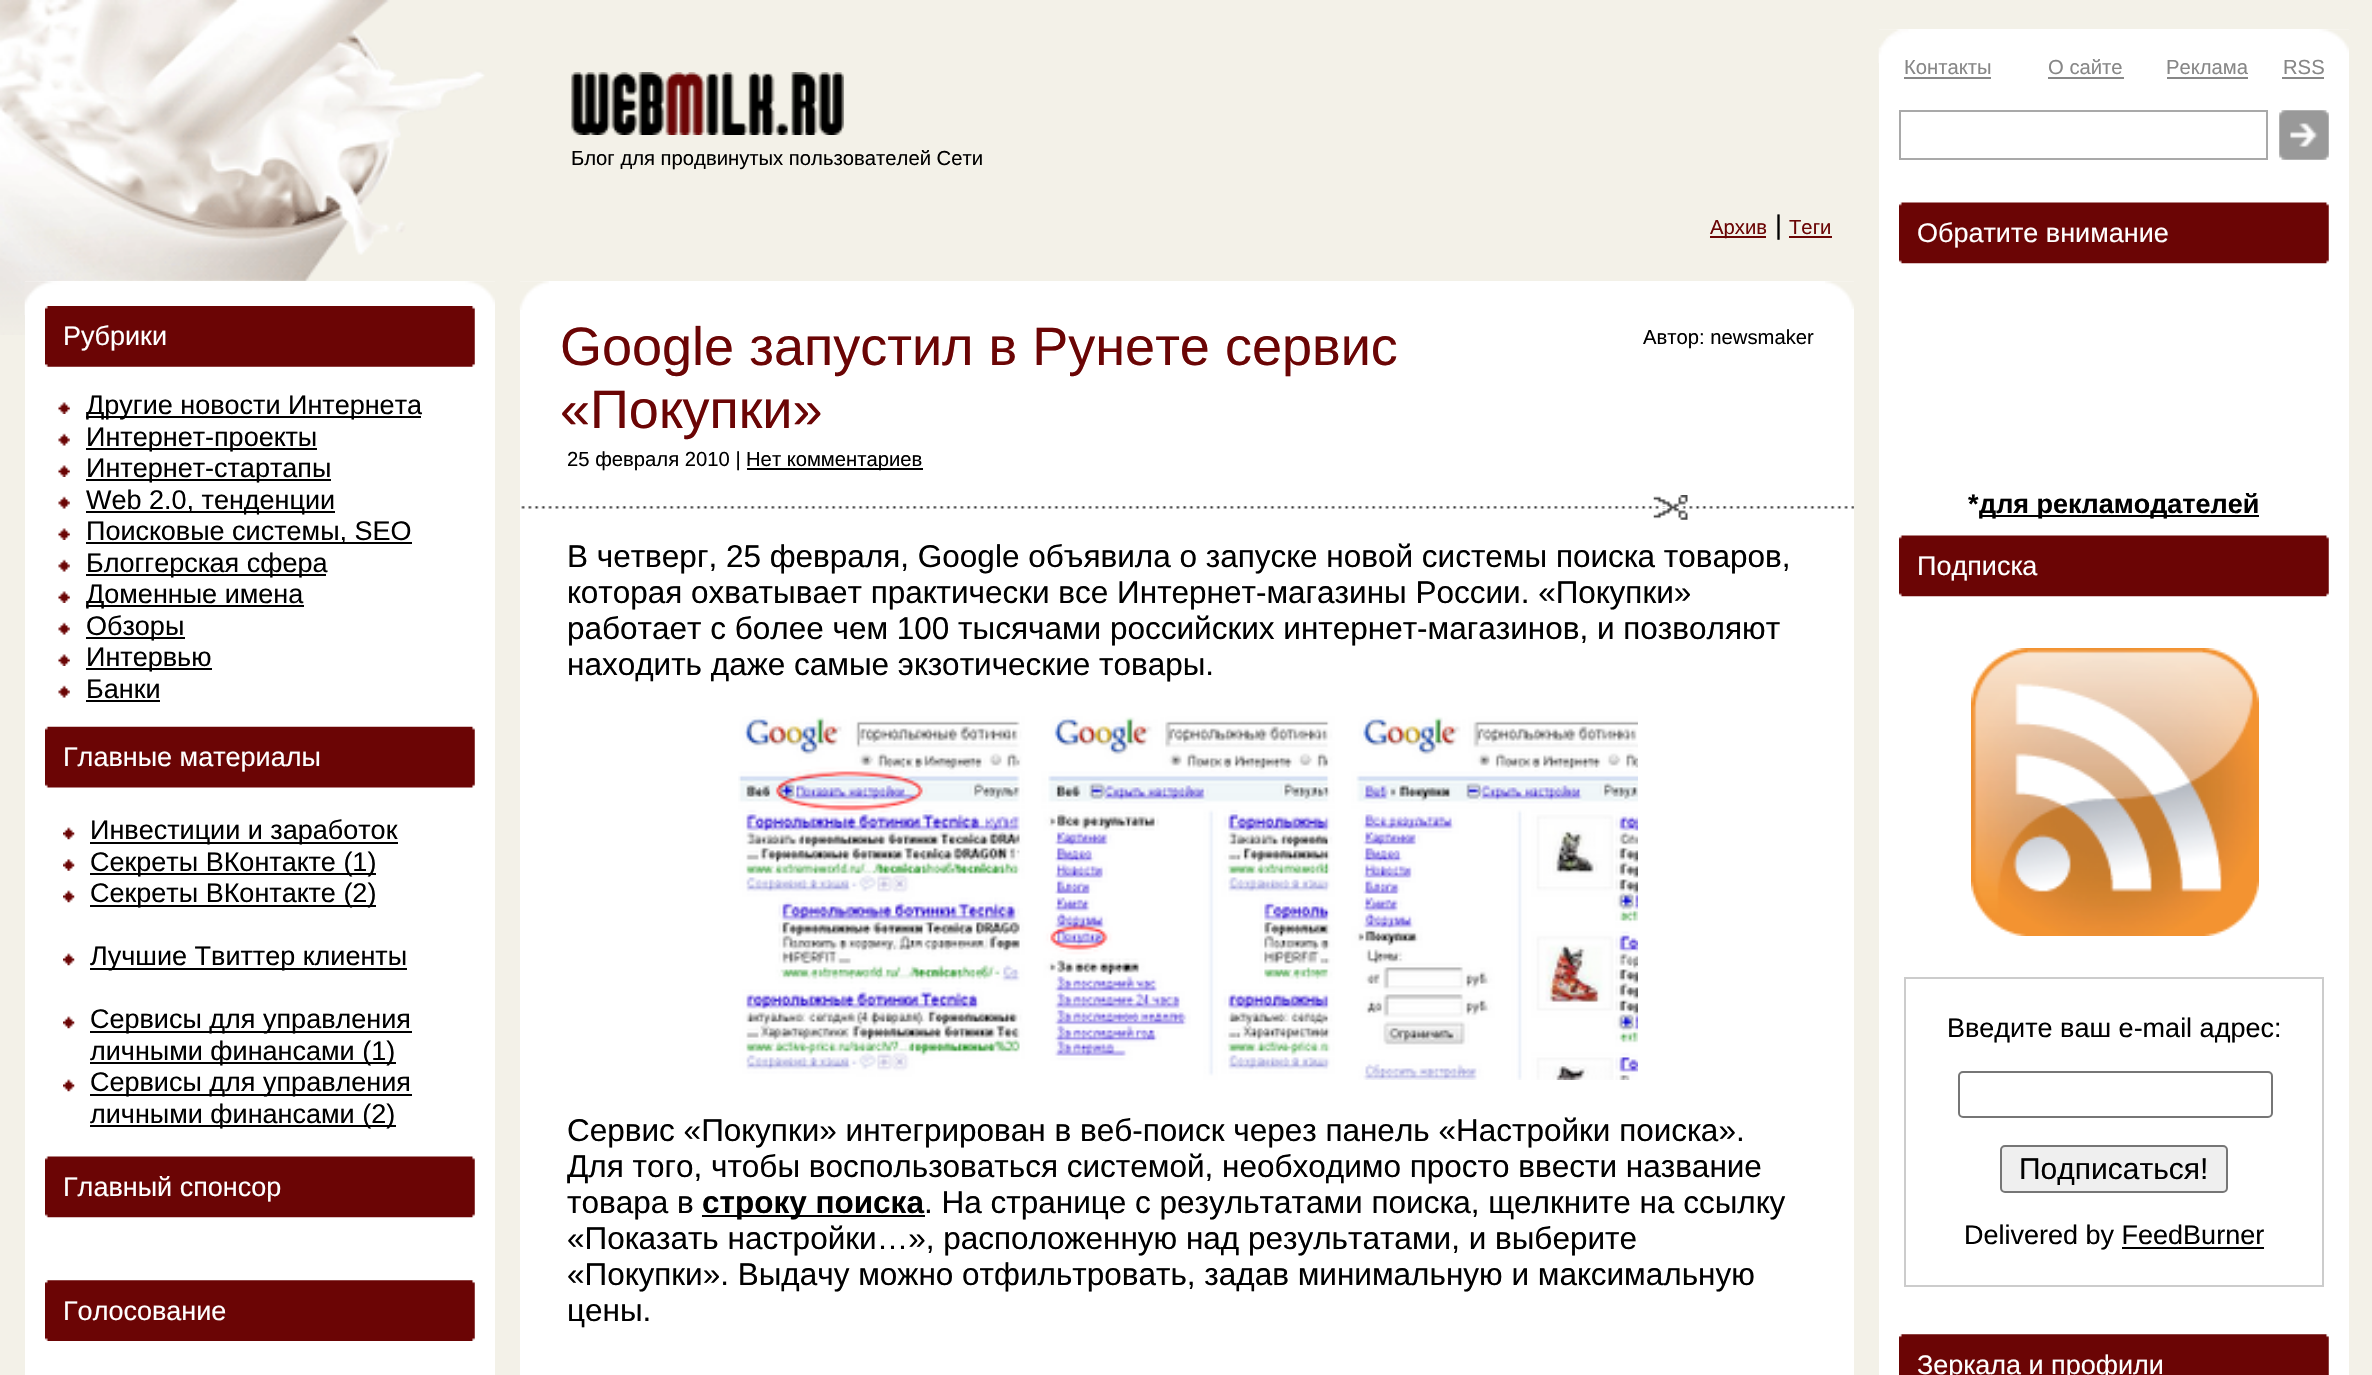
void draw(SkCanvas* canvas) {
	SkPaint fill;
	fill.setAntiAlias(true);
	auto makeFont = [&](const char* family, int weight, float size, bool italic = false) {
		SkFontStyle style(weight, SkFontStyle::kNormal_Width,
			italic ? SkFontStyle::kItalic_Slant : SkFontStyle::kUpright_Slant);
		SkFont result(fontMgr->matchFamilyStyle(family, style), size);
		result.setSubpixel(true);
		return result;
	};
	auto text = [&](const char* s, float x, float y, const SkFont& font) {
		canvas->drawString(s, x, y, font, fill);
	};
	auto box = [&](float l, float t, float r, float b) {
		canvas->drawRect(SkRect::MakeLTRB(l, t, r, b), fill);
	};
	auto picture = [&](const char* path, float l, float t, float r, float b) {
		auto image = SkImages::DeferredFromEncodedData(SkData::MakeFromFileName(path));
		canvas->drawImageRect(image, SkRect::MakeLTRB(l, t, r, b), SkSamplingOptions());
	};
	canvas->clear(0xFFF3F1E8);
	picture("image0.png", 0, 0, 485, 335);
	fill.setColor(0xFFFFFFFF);
	box(25, 281, 495, 1375);
	picture("image1.png", 24, 281, 495, 315);
	picture("image2.png", 45, 306, 475, 367);
	picture("image3.png", 58, 402, 70, 414);
	fill.setColor(0xFF000000);
	box(86, 416, 421, 418);
	picture("image4.png", 58, 433, 70, 446);
	box(86, 448, 317, 450);
	picture("image3.png", 58, 465, 70, 477);
	box(86, 479, 331, 481);
	picture("image4.png", 58, 496, 70, 509);
	box(86, 511, 335, 513);
	picture("image3.png", 58, 528, 70, 540);
	box(86, 542, 412, 544);
	picture("image4.png", 58, 559, 70, 572);
	box(86, 574, 326, 576);
	picture("image5.png", 58, 591, 70, 603);
	box(86, 605, 304, 607);
	picture("image4.png", 58, 622, 70, 635);
	box(86, 637, 185, 639);
	picture("image3.png", 58, 654, 70, 666);
	box(86, 668, 212, 670);
	picture("image4.png", 58, 685, 70, 698);
	box(86, 700, 160, 702);
	picture("image6.png", 45, 726, 475, 788);
	picture("image7.png", 63, 827, 75, 840);
	box(90, 842, 398, 844);
	picture("image8.png", 63, 859, 75, 871);
	box(90, 873, 376, 875);
	picture("image7.png", 63, 890, 75, 903);
	box(90, 905, 376, 907);
	picture("image7.png", 63, 953, 75, 966);
	box(90, 968, 407, 970);
	picture("image7.png", 63, 1016, 75, 1029);
	box(90, 1031, 412, 1033);
	box(90, 1062, 396, 1064);
	picture("image7.png", 63, 1079, 75, 1092);
	box(90, 1094, 412, 1096);
	box(90, 1125, 396, 1127);
	picture("image9.png", 45, 1156, 475, 1218);
	picture("image10.png", 45, 1280, 475, 1341);
	picture("image11.png", 571, 72, 844, 135);
	fill.setColor(0xFF6B0505);
	box(1710, 236, 1766, 238);
	box(1789, 236, 1832, 238);
	fill.setColor(0xFFFFFFFF);
	box(520, 281, 1854, 1375);
	picture("image12.png", 519, 281, 549, 310);
	picture("image13.png", 1825, 281, 1854, 309);
	fill.setColor(0xFF000000);
	box(747, 468, 923, 470);
	picture("image14.png", 521, 506, 1854, 509);
	picture("image15.png", 1653, 495, 1688, 520);
	picture("image16.png", 738, 716, 1638, 1080);
	box(702, 1215, 925, 1217);
	fill.setColor(0xFFFFFFFF);
	box(1879, 29, 2349, 1375);
	picture("image17.png", 1878, 29, 2349, 63);
	fill.setColor(0xFF878787);
	box(1904, 77, 1991, 79);
	box(2048, 77, 2124, 79);
	box(2167, 77, 2248, 79);
	box(2282, 77, 2324, 79);
	fill.setStyle(SkPaint::kStroke_Style);
	fill.setStrokeWidth(2);
	fill.setColor(0xFFA9A9A9);
	canvas->drawRect(SkRect::MakeLTRB(1900, 111, 2267, 159), fill);
	picture("image18.png", 2279, 110, 2329, 160);
	picture("image9.png", 1899, 202, 2329, 264);
	fill.setStyle(SkPaint::kFill_Style);
	fill.setColor(0xFF000000);
	box(1980, 515, 2259, 517);
	picture("image9.png", 1899, 535, 2329, 597);
	picture("image19.png", 1971, 648, 2259, 936);
	fill.setStyle(SkPaint::kStroke_Style);
	fill.setColor(0xFFCCCCCC);
	canvas->drawRect(SkRect::MakeLTRB(1905, 978, 2323, 1286), fill);
	fill.setColor(0xFF767676);
	canvas->drawRoundRect(SkRect::MakeLTRB(1959, 1072, 2272, 1117), 4, 4, fill);
	fill.setStyle(SkPaint::kFill_Style);
	fill.setColor(0xFFEFEFEF);
	canvas->drawRoundRect(SkRect::MakeLTRB(2001, 1146, 2227, 1192), 4, 4, fill);
	fill.setStyle(SkPaint::kStroke_Style);
	fill.setColor(0xFF767676);
	canvas->drawRoundRect(SkRect::MakeLTRB(2001, 1146, 2227, 1192), 4, 4, fill);
	fill.setStyle(SkPaint::kFill_Style);
	fill.setColor(0xFF000000);
	box(2122, 1247, 2264, 1249);
	picture("image20.png", 1899, 1334, 2329, 1375);
	auto font1 = makeFont("Liberation Sans", 400, 27);
	fill.setColor(0xFFFFFFFF);
	text("Рубрики", 63, 345, font1);
	fill.setColor(0xFF000000);
	text("Другие новости Интернета", 86, 414, font1);
	text("Интернет-проекты", 86, 446, font1);
	text("Интернет-стартапы", 86, 477, font1);
	text("Web 2.0, тенденции", 86, 509, font1);
	text("Поисковые системы, SEO", 86, 540, font1);
	text("Блоггерская сфера", 86, 572, font1);
	text("Доменные имена", 86, 603, font1);
	text("Обзоры", 86, 635, font1);
	text("Интервью", 86, 666, font1);
	text("Банки", 86, 698, font1);
	fill.setColor(0xFFFFFFFF);
	text("Главные материалы", 63, 766, font1);
	fill.setColor(0xFF000000);
	text("Инвестиции и заработок", 90, 839, font1);
	text("Секреты ВКонтакте (1)", 90, 871, font1);
	text("Секреты ВКонтакте (2)", 90, 902, font1);
	text("Лучшие Твиттер клиенты", 90, 965, font1);
	text("Сервисы для управления", 90, 1028, font1);
	text("личными финансами (1)", 90, 1060, font1);
	text("Сервисы для управления", 90, 1091, font1);
	text("личными финансами (2)", 90, 1123, font1);
	fill.setColor(0xFFFFFFFF);
	text("Главный спонсор", 63, 1196, font1);
	text("Голосование", 63, 1320, font1);
	auto font2 = makeFont("Liberation Sans", 400, 20.25f);
	fill.setColor(0xFF000000);
	text("Блог для продвинутых пользователей Сети", 571, 165, font2);
	fill.setColor(0xFF6B0505);
	text("Архив", 1710, 234, font2);
	fill.setColor(0xFF000000);
	text("|", 1775, 234, font1);
	fill.setColor(0xFF6B0505);
	text("Теги", 1789, 234, font2);
	auto font3 = makeFont("Liberation Sans", 400, 54);
	text("Google запустил в Рунете сервис", 560, 365, font3);
	text("«Покупки»", 560, 428, font3);
	fill.setColor(0xFF000000);
	text("25 февраля 2010 |", 567, 466, font2);
	text("Нет комментариев", 746, 466, font2);
	text("Автор: newsmaker", 1643, 344, font2);
	auto font4 = makeFont("Liberation Sans", 400, 31.5f);
	text("В четверг, 25 февраля, Google объявила о запуске новой системы поиска товаров,", 567, 567, font4);
	text("которая охватывает практически все Интернет-магазины России. «Покупки»", 567, 603, font4);
	text("работает с более чем 100 тысячами российских интернет-магазинов, и позволяют", 567, 639, font4);
	text("находить даже самые экзотические товары.", 567, 675, font4);
	text("Сервис «Покупки» интегрирован в веб-поиск через панель «Настройки поиска».", 567, 1141, font4);
	text("Для того, чтобы воспользоваться системой, необходимо просто ввести название", 567, 1177, font4);
	text("товара в", 567, 1213, font4);
	auto font5 = makeFont("Liberation Sans", 700, 31.5f);
	text("строку поиска", 702, 1213, font5);
	text(". На странице с результатами поиска, щелкните на ссылку", 924, 1213, font4);
	text("«Показать настройки…», расположенную над результатами, и выберите", 567, 1249, font4);
	text("«Покупки». Выдачу можно отфильтровать, задав минимальную и максимальную", 567, 1285, font4);
	text("цены.", 567, 1321, font4);
	fill.setColor(0xFF878787);
	text("Контакты", 1904, 74, font2);
	text("О сайте", 2048, 74, font2);
	text("Реклама", 2166, 74, font2);
	text("RSS", 2283, 74, font2);
	fill.setColor(0xFFFFFFFF);
	text("Обратите внимание", 1917, 242, font1);
	auto font6 = makeFont("Liberation Sans", 700, 27);
	fill.setColor(0xFF000000);
	text("*", 1968, 513, font6);
	text("для рекламодателей", 1979, 513, font6);
	fill.setColor(0xFFFFFFFF);
	text("Подписка", 1917, 575, font1);
	fill.setColor(0xFF000000);
	text("Введите ваш e-mail адрес:", 1947, 1037, font1);
	auto font7 = makeFont("Liberation Sans", 400, 30);
	text("Подписаться!", 2019, 1179, font7);
	text("Delivered by FeedBurner", 1964, 1244, font1);
	fill.setColor(0xFFFFFFFF);
	text("Зеркала и профили", 1917, 1374, font1);
}
